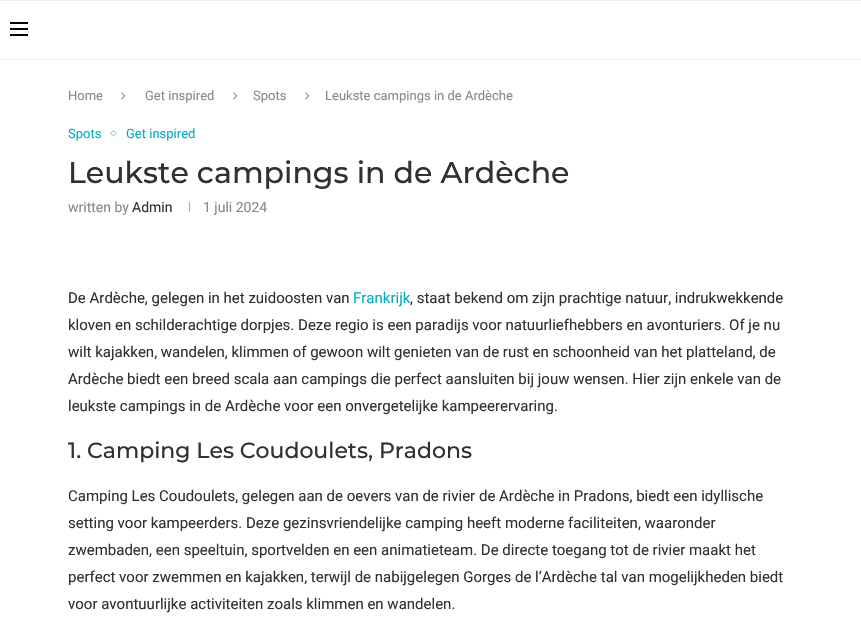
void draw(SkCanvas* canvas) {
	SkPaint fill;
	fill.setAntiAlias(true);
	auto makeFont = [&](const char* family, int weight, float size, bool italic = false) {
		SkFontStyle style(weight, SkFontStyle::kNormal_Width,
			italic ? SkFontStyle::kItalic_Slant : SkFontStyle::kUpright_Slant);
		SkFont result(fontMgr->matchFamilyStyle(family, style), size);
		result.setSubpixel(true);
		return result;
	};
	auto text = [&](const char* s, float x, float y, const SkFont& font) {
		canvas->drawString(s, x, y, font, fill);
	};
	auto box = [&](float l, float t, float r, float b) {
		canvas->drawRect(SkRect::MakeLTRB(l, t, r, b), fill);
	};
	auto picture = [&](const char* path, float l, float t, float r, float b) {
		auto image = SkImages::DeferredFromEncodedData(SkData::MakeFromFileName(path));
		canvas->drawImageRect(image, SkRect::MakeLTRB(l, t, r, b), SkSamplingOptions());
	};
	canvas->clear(0xFFFFFFFF);
	fill.setColor(0xFFECECEC);
	box(0, 0, 861, 1);
	box(0, 59, 861, 60);
	fill.setColor(0xFF000000);
	box(10, 22, 28, 24);
	box(10, 28, 28, 30);
	box(10, 34, 28, 36);
	picture("image0.png", 121, 92, 126, 100);
	picture("image0.png", 233, 92, 238, 100);
	picture("image0.png", 305, 92, 310, 100);
	fill.setStyle(SkPaint::kStroke_Style);
	fill.setStrokeWidth(1);
	fill.setColor(0xFF59C9D7);
	canvas->drawPath(SkPathBuilder().moveTo(113.5f, 130.5f).lineTo(116, 133.5f).lineTo(113.5f, 136).lineTo(110.5f, 133.5f).close().detach(), fill);
	fill.setStyle(SkPaint::kFill_Style);
	fill.setColor(0xFFACACAC);
	box(189, 202, 190, 212);
	auto font1 = makeFont("Roboto", 400, 13);
	fill.setColor(0xFF888888);
	text("Home", 68, 100, font1);
	text("Get inspired", 145, 100, font1);
	text("Spots", 253, 100, font1);
	text("Leukste campings in de Ardèche", 325, 100, font1);
	fill.setColor(0xFF00ACC1);
	text("Spots", 68, 138, font1);
	text("Get inspired", 126, 138, font1);
	auto font2 = makeFont("Montserrat", 500, 30);
	fill.setColor(0xFF313131);
	text("Leukste campings in de Ardèche", 68, 183, font2);
	auto font3 = makeFont("Roboto", 400, 14);
	fill.setColor(0xFF888888);
	text("written by", 68, 212, font3);
	fill.setColor(0xFF313131);
	text("Admin", 132, 212, font3);
	fill.setColor(0xFF888888);
	text("1 juli 2024", 203, 212, font3);
	auto font4 = makeFont("Roboto", 400, 15);
	fill.setColor(0xFF313131);
	text("De Ardèche, gelegen in het zuidoosten van", 68, 303, font4);
	fill.setColor(0xFF00ACC1);
	text("Frankrijk", 353, 303, font4);
	fill.setColor(0xFF313131);
	text(", staat bekend om zijn prachtige natuur, indrukwekkende", 410, 303, font4);
	text("kloven en schilderachtige dorpjes. Deze regio is een paradijs voor natuurliefhebbers en avonturiers. Of je nu", 68, 330, font4);
	text("wilt kajakken, wandelen, klimmen of gewoon wilt genieten van de rust en schoonheid van het platteland, de", 68, 357, font4);
	text("Ardèche biedt een breed scala aan campings die perfect aansluiten bij jouw wensen. Hier zijn enkele van de", 68, 384, font4);
	text("leukste campings in de Ardèche voor een onvergetelijke kampeerervaring.", 68, 411, font4);
	auto font5 = makeFont("Montserrat", 500, 22);
	text("1. Camping Les Coudoulets, Pradons", 68, 458, font5);
	text("Camping Les Coudoulets, gelegen aan de oevers van de rivier de Ardèche in Pradons, biedt een idyllische", 68, 501, font4);
	text("setting voor kampeerders. Deze gezinsvriendelijke camping heeft moderne faciliteiten, waaronder", 68, 528, font4);
	text("zwembaden, een speeltuin, sportvelden en een animatieteam. De directe toegang tot de rivier maakt het", 68, 555, font4);
	text("perfect voor zwemmen en kajakken, terwijl de nabijgelegen Gorges de l’Ardèche tal van mogelijkheden biedt", 68, 582, font4);
	text("voor avontuurlijke activiteiten zoals klimmen en wandelen.", 68, 609, font4);
}
